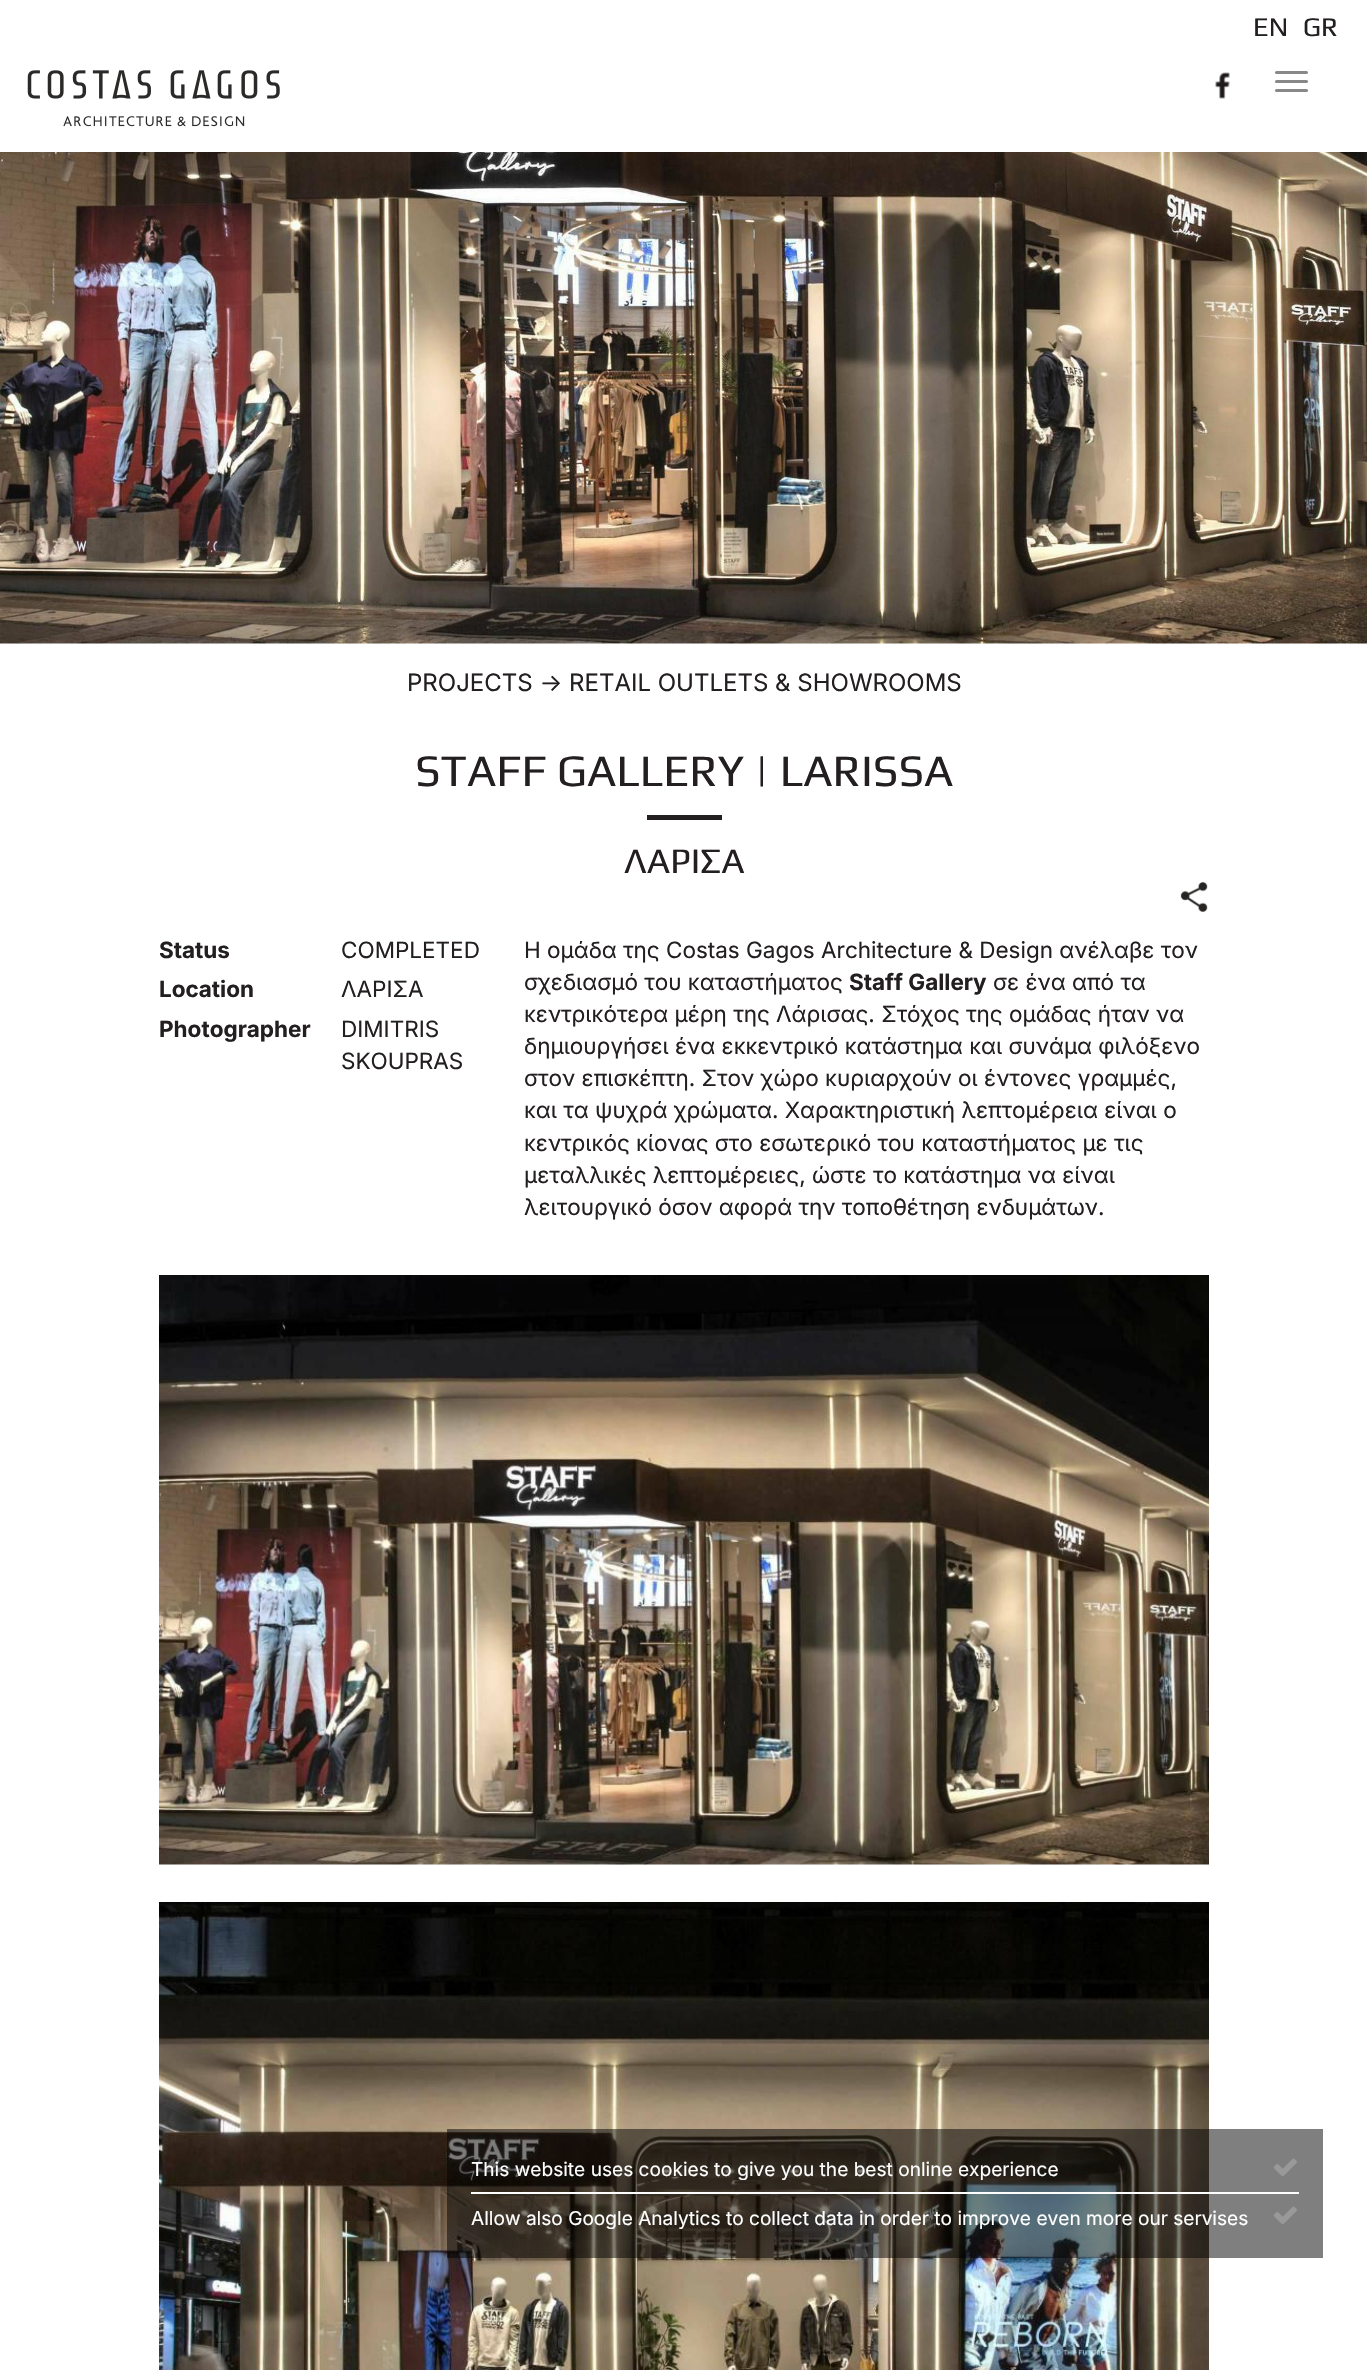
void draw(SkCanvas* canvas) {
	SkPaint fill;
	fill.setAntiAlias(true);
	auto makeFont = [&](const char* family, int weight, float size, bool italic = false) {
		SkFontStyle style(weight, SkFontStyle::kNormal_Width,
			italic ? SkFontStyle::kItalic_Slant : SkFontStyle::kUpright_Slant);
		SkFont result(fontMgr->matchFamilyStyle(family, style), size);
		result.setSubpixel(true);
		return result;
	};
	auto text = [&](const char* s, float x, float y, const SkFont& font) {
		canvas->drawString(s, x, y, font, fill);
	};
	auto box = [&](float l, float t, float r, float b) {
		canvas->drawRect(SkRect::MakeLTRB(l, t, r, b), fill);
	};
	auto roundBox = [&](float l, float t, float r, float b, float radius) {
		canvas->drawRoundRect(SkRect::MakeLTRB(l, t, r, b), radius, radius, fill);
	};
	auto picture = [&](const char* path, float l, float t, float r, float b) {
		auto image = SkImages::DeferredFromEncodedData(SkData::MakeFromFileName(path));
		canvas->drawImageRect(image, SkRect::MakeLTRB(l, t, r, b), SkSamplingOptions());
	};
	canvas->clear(0xFFFFFFFF);
	picture("image0.png", 27, 70, 280, 127);
	picture("image1.png", 1215, 72, 1230, 99);
	fill.setColor(0xFF888888);
	roundBox(1275, 71, 1308, 74, 1.5f);
	roundBox(1275, 80, 1308, 83, 1.5f);
	roundBox(1275, 89, 1308, 92, 1.5f);
	picture("image2.png", 0, 152, 1367, 644);
	fill.setColor(0xFF231F20);
	box(647, 815, 722, 820);
	picture("image3.png", 1180, 882, 1208, 912);
	picture("image4.png", 159, 1275, 1209, 1865);
	picture("image5.png", 159, 1902, 1209, 2370);
	fill.setColor(0x80000000);
	box(447, 2129, 1323, 2258);
	fill.setColor(0xFFFFFFFF);
	box(471, 2192, 1299, 2194);
	picture("image6.png", 1274, 2158, 1297, 2177);
	picture("image6.png", 1274, 2206, 1297, 2225);
	auto font1 = makeFont("Play", 400, 27);
	fill.setColor(0xFF231F20);
	text("EN", 1253, 36, font1);
	text("GR", 1303, 36, font1);
	auto font2 = makeFont("Inter", 400, 24);
	text("PROJECTS → RETAIL OUTLETS & SHOWROOMS", 407, 691, font2);
	auto font3 = makeFont("Play", 400, 45);
	text("STAFF GALLERY | LARISSA", 415, 786, font3);
	auto font4 = makeFont("Play", 400, 36);
	text("ΛΑΡΙΣΑ", 624, 873, font4);
	auto font5 = makeFont("Inter", 700, 22.5f);
	text("Status", 159, 958, font5);
	auto font6 = makeFont("Inter", 400, 22.5f);
	text("COMPLETED", 341, 958, font6);
	text("Location", 159, 997, font5);
	text("ΛΑΡΙΣΑ", 341, 997, font6);
	text("Photographer", 159, 1037, font5);
	text("DIMITRIS", 341, 1037, font6);
	text("SKOUPRAS", 341, 1069, font6);
	text("Η ομάδα της Costas Gagos Architecture & Design ανέλαβε τον", 524, 958, font6);
	text("σχεδιασμό του καταστήματος", 524, 990, font6);
	text("Staff Gallery", 849, 990, font5);
	text("σε ένα από τα", 993, 990, font6);
	text("κεντρικότερα μέρη της Λάρισας. Στόχος της ομάδας ήταν να", 524, 1022, font6);
	text("δημιουργήσει ένα εκκεντρικό κατάστημα και συνάμα φιλόξενο", 524, 1054, font6);
	text("στον επισκέπτη. Στον χώρο κυριαρχούν οι έντονες γραμμές,", 524, 1086, font6);
	text("και τα ψυχρά χρώματα. Χαρακτηριστική λεπτομέρεια είναι ο", 524, 1118, font6);
	text("κεντρικός κίονας στο εσωτερικό του καταστήματος με τις", 524, 1151, font6);
	text("μεταλλικές λεπτομέρειες, ώστε το κατάστημα να είναι", 524, 1183, font6);
	text("λειτουργικό όσον αφορά την τοποθέτηση ενδυμάτων.", 524, 1215, font6);
	auto font7 = makeFont("Inter", 400, 19.1f);
	fill.setColor(0xFFFFFFFF);
	text("This website uses cookies to give you the best online experience", 471, 2176, font7);
	text("Allow also Google Analytics to collect data in order to improve even more our servises", 471, 2225, font7);
}
